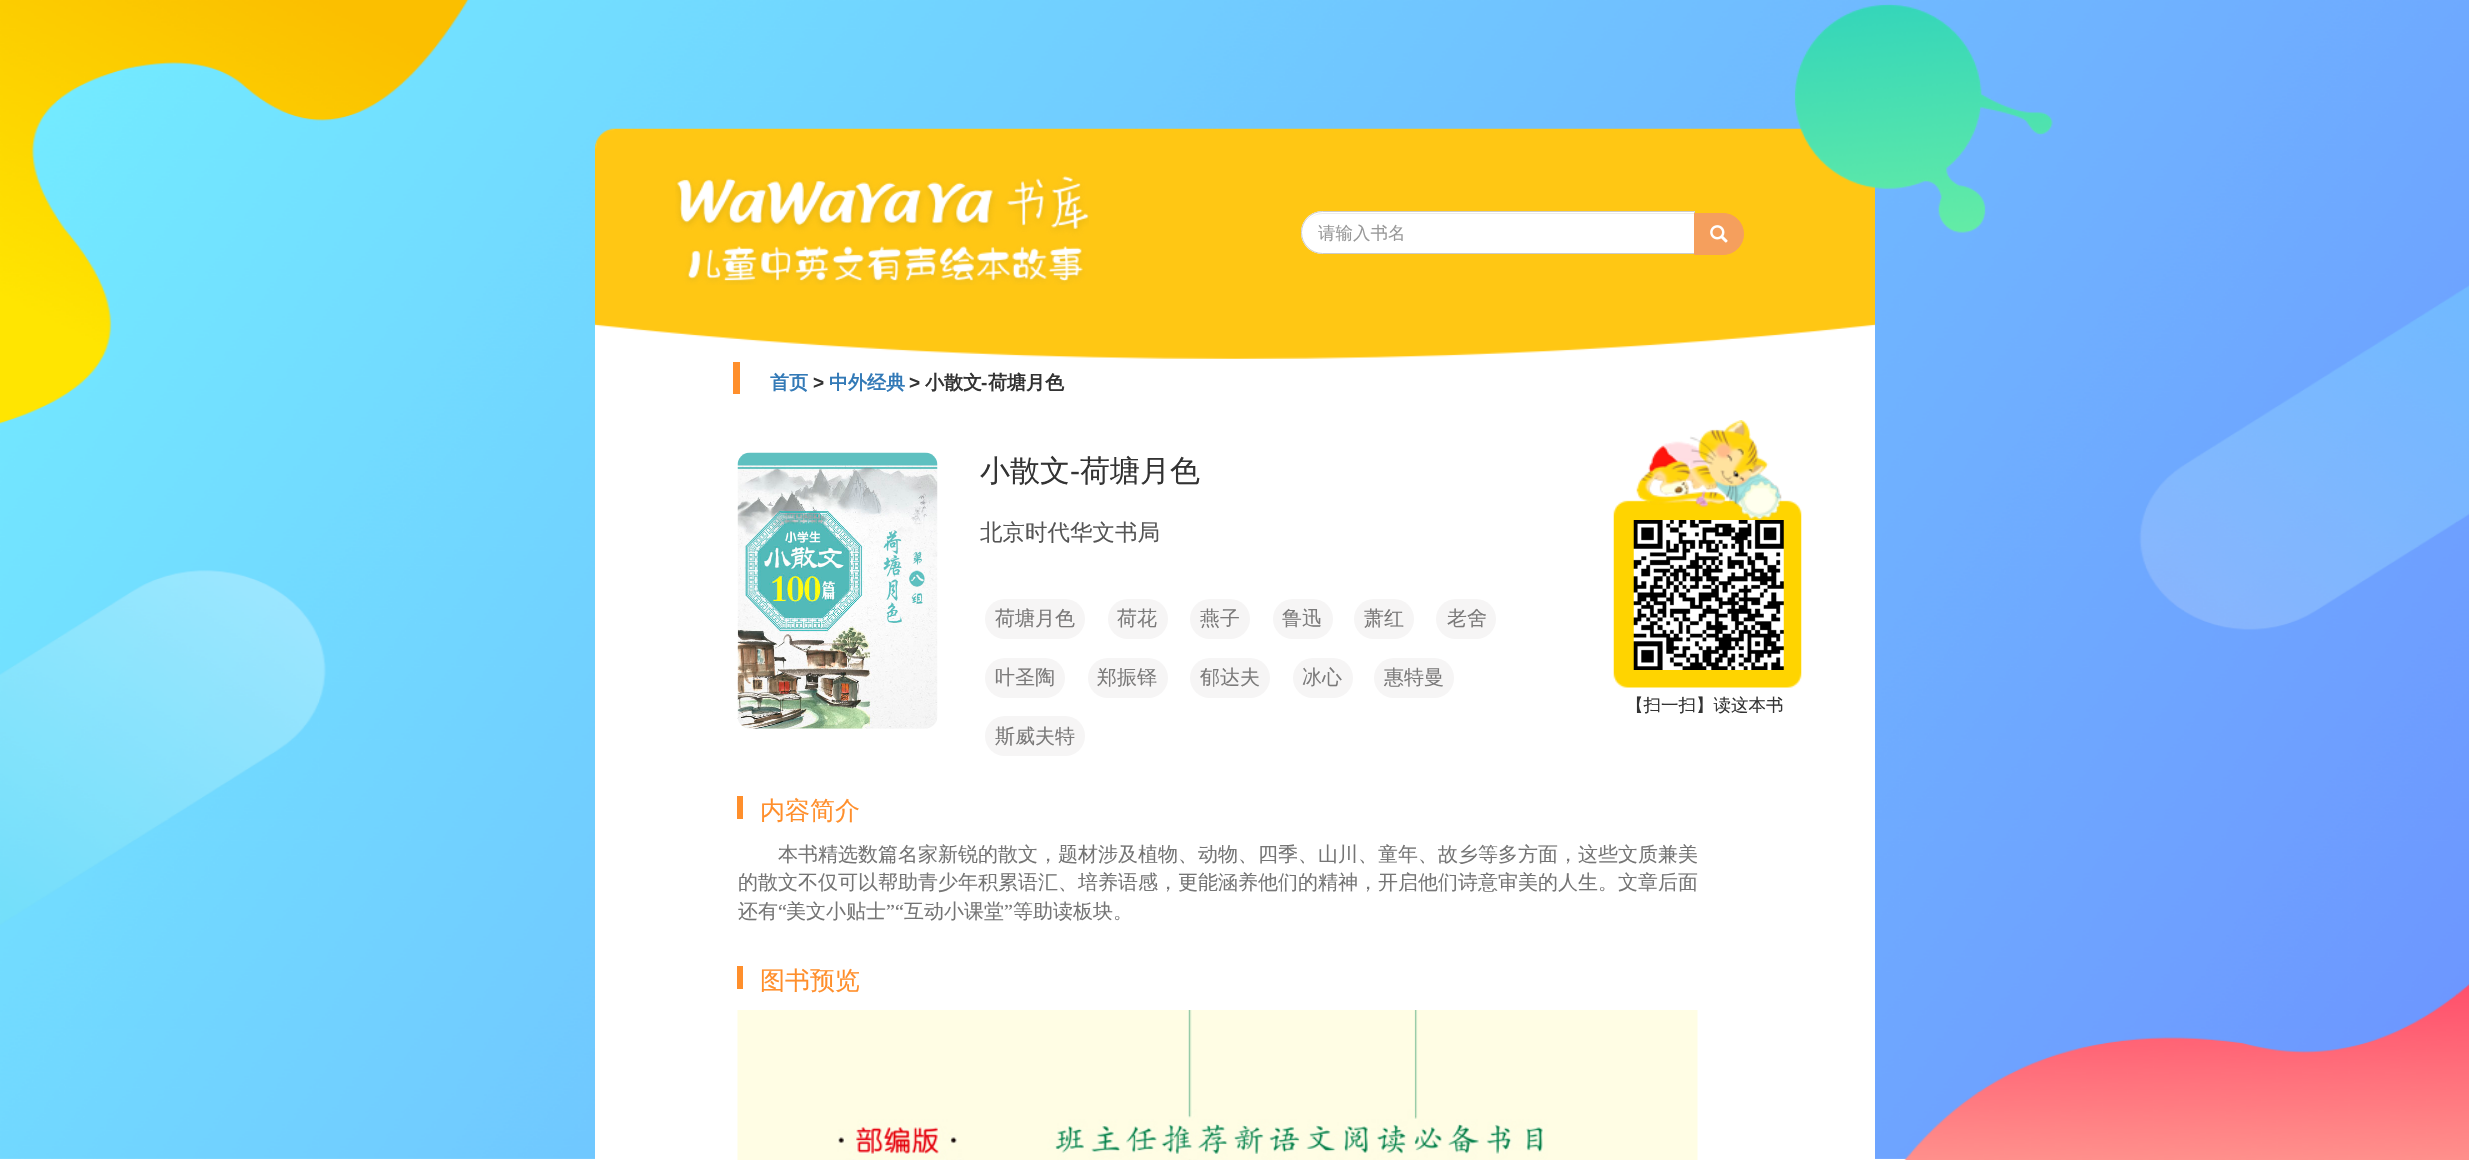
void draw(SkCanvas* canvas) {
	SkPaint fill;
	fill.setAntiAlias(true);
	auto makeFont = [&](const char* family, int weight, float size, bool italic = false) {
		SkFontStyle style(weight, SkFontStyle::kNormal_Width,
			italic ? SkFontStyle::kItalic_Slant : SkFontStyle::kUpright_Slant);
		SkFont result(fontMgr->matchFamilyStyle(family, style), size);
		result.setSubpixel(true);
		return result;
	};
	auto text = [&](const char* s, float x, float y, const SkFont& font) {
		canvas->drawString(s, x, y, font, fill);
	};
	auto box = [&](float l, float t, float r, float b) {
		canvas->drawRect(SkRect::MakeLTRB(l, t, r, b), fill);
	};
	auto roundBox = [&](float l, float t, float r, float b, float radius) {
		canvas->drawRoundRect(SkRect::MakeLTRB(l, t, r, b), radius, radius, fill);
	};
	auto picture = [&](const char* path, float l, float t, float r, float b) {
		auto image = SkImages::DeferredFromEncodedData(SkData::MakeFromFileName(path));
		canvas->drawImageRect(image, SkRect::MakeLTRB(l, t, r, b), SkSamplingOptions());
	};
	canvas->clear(0xFFFFFFFF);
	picture("image0.png", 0, 0, 2469, 1160);
	fill.setColor(0xFFFFFFFF);
	roundBox(595, 129, 1875, 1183, 23);
	picture("image1.png", 595, 128, 1875, 359);
	picture("image2.png", 675, 176, 1089, 285);
	canvas->drawPath(SkPathBuilder().moveTo(1322.5f, 211).lineTo(1695, 211).lineTo(1695, 254).lineTo(1322.5f, 254).cubicTo(1310.5f, 254, 1301, 244.5f, 1301, 232.5f).cubicTo(1301, 220.5f, 1310.5f, 211, 1322.5f, 211).close().detach(), fill);
	fill.setColor(0xFFECECEC);
	canvas->drawPath(SkPathBuilder().moveTo(1322, 214).lineTo(1694, 214).lineTo(1694, 213).lineTo(1323, 213).cubicTo(1317, 213, 1312, 216, 1308, 220).cubicTo(1312, 216, 1317, 214, 1322, 214).close().detach(), fill);
	fill.setStyle(SkPaint::kStroke_Style);
	fill.setStrokeWidth(1);
	fill.setColor(0xFFCCCCCC);
	canvas->drawPath(SkPathBuilder().moveTo(1322.5f, 211.5f).lineTo(1694.5f, 211.5f).lineTo(1694.5f, 253.5f).lineTo(1322.5f, 253.5f).cubicTo(1311, 253.5f, 1301.5f, 244, 1301.5f, 232.5f).cubicTo(1301.5f, 221, 1311, 211.5f, 1322.5f, 211.5f).close().detach(), fill);
	fill.setStyle(SkPaint::kFill_Style);
	fill.setColor(0xFFF59F5D);
	canvas->drawPath(SkPathBuilder().moveTo(1694.5f, 213.5f).lineTo(1723, 213.5f).cubicTo(1734.5f, 213.5f, 1743.5f, 222.5f, 1743.5f, 234).cubicTo(1743.5f, 245.5f, 1734.5f, 254.5f, 1723, 254.5f).lineTo(1694.5f, 254.5f).close().detach(), fill);
	fill.setStyle(SkPaint::kStroke_Style);
	canvas->drawPath(SkPathBuilder().moveTo(1694.5f, 213.5f).lineTo(1723, 213.5f).cubicTo(1734.5f, 213.5f, 1743.5f, 222.5f, 1743.5f, 234).cubicTo(1743.5f, 245.5f, 1734.5f, 254.5f, 1723, 254.5f).lineTo(1694.5f, 254.5f).close().detach(), fill);
	picture("image3.png", 1710, 225, 1728, 243);
	picture("image4.png", 1794, 4, 2053, 233);
	fill.setStyle(SkPaint::kFill_Style);
	fill.setColor(0xFFFF8F2C);
	box(733, 362, 740, 394);
	picture("image5.png", 737, 452, 938, 729);
	fill.setColor(0xFFF6F5F5);
	roundBox(985, 599, 1085, 639, 20);
	roundBox(1108, 599, 1168, 639, 20);
	roundBox(1190, 599, 1250, 639, 20);
	roundBox(1273, 599, 1333, 639, 20);
	roundBox(1354, 599, 1414, 639, 20);
	roundBox(1436, 599, 1496, 639, 20);
	roundBox(985, 658, 1065, 698, 20);
	roundBox(1088, 658, 1168, 698, 20);
	roundBox(1190, 658, 1270, 698, 20);
	roundBox(1293, 658, 1353, 698, 20);
	roundBox(1374, 658, 1454, 698, 20);
	roundBox(985, 716, 1085, 756, 20);
	picture("image6.png", 1613, 420, 1802, 688);
	picture("image7.png", 1633, 520, 1784, 670);
	fill.setColor(0xFFFF8F2C);
	box(737, 796, 743, 819);
	box(737, 966, 743, 989);
	picture("image8.png", 737, 1010, 1698, 1160);
	auto font1 = makeFont("WenQuanYi Zen Hei", 500, 17.5f);
	fill.setColor(0xFF999999);
	text("请输入书名", 1318, 239, font1);
	auto font2 = makeFont("WenQuanYi Zen Hei", 700, 19);
	fill.setColor(0xFF337AB7);
	text("首页", 770, 389, font2);
	auto font3 = makeFont("Liberation Sans", 700, 19);
	fill.setColor(0xFF333333);
	text(">", 813, 389, font3);
	fill.setColor(0xFF337AB7);
	text("中外经典", 829, 389, font2);
	fill.setColor(0xFF333333);
	text(">", 909, 389, font3);
	text("小散文", 925, 389, font2);
	text("-", 981, 389, font3);
	text("荷塘月色", 988, 389, font2);
	auto font4 = makeFont("WenQuanYi Zen Hei", 500, 30);
	text("小散文", 980, 481, font4);
	auto font5 = makeFont("Liberation Sans", 400, 30);
	text("-", 1070, 481, font5);
	text("荷塘月色", 1080, 481, font4);
	auto font6 = makeFont("WenQuanYi Zen Hei", 500, 22.5f);
	fill.setColor(0xFF555555);
	text("北京时代华文书局", 980, 540, font6);
	auto font7 = makeFont("WenQuanYi Zen Hei", 500, 20);
	fill.setColor(0xFF7B7A7A);
	text("荷塘月色", 995, 625, font7);
	text("荷花", 1117, 625, font7);
	text("燕子", 1200, 625, font7);
	text("鲁迅", 1282, 625, font7);
	text("萧红", 1364, 625, font7);
	text("老舍", 1447, 625, font7);
	text("叶圣陶", 995, 684, font7);
	text("郑振铎", 1097, 684, font7);
	text("郁达夫", 1200, 684, font7);
	text("冰心", 1302, 684, font7);
	text("惠特曼", 1384, 684, font7);
	text("斯威夫特", 995, 743, font7);
	fill.setColor(0xFF333333);
	text("【扫一扫】读这本书", 1626, 711, font1);
	auto font8 = makeFont("WenQuanYi Zen Hei", 500, 25);
	fill.setColor(0xFFFF8F2C);
	text("内容简介", 760, 819, font8);
	fill.setColor(0xFF757575);
	text("本书精选数篇名家新锐的散文，题材涉及植物、动物、四季、山川、童年、故乡等多方面，这些文质兼美", 778, 861, font7);
	text("的散文不仅可以帮助青少年积累语汇、培养语感，更能涵养他们的精神，开启他们诗意审美的人生。文章后面", 738, 889, font7);
	text("还有", 738, 918, font7);
	auto font9 = makeFont("Liberation Serif", 400, 20);
	text("“", 778, 918, font9);
	text("美文小贴士", 786, 918, font7);
	text("”“", 886, 918, font9);
	text("互动小课堂", 904, 918, font7);
	text("”", 1004, 918, font9);
	text("等助读板块。", 1013, 918, font7);
	fill.setColor(0xFFFF8F2C);
	text("图书预览", 760, 989, font8);
}
